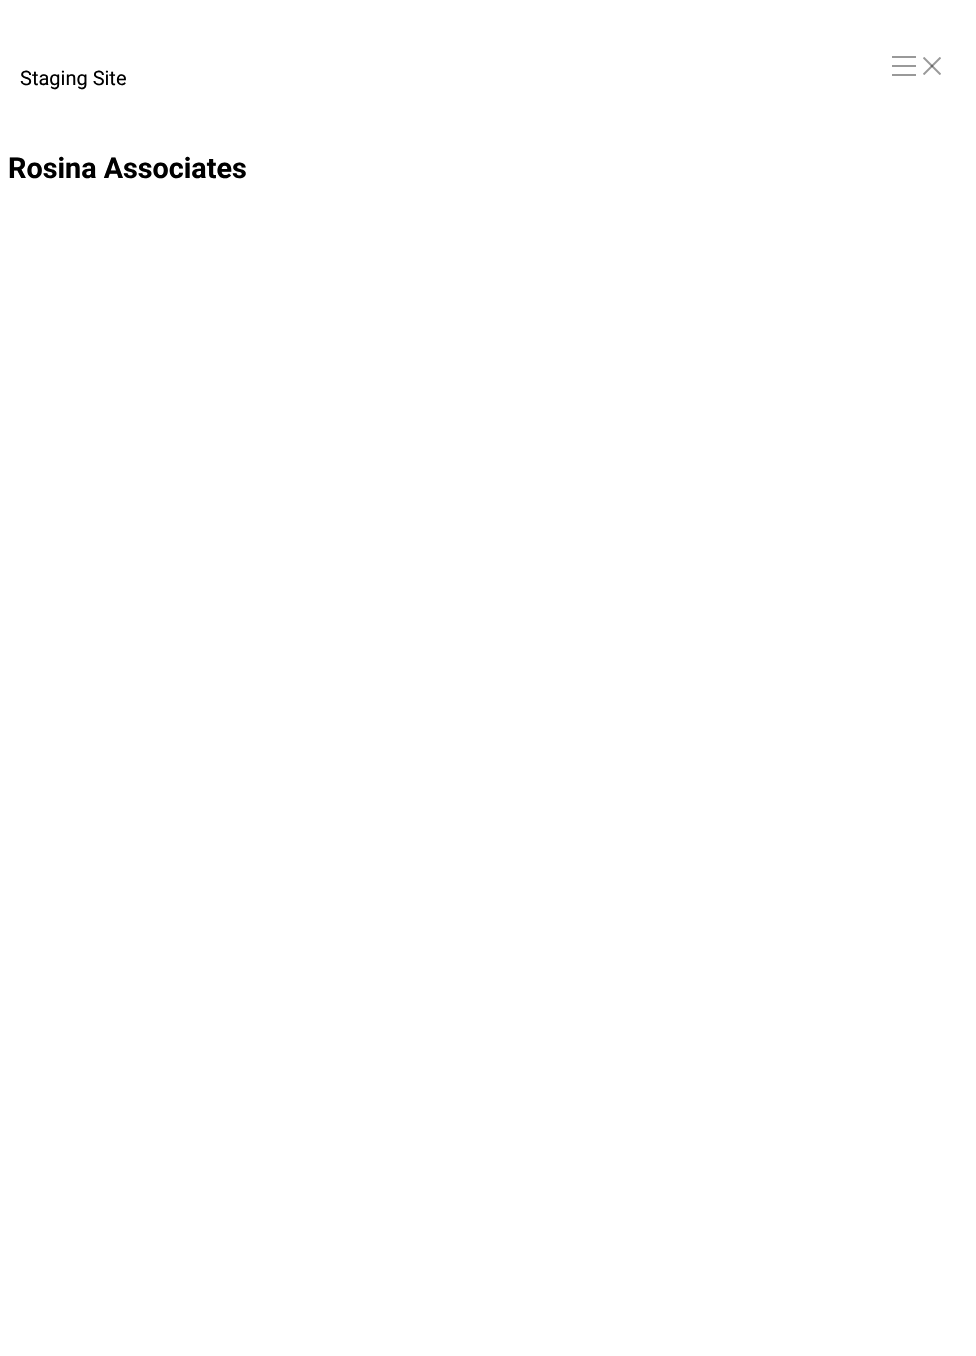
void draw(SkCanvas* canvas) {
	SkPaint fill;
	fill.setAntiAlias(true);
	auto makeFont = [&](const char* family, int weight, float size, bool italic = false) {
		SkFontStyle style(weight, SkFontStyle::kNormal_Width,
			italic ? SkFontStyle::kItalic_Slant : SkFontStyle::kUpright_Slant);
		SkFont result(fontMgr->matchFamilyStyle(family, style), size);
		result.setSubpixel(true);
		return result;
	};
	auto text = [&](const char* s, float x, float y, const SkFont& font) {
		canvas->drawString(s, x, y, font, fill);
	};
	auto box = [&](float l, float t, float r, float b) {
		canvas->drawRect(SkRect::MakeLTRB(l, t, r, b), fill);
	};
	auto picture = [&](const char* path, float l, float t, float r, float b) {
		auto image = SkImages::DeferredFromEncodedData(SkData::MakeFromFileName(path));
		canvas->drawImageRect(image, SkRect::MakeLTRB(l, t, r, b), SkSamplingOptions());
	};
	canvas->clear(0xFFFFFFFF);
	fill.setColor(0xFF999999);
	box(892, 56, 916, 58);
	picture("image0.png", 923, 57, 941, 75);
	box(892, 65, 916, 67);
	box(892, 74, 916, 76);
	auto font1 = makeFont("Roboto", 400, 20);
	fill.setColor(0xFF000000);
	text("Staging Site", 20, 85, font1);
	auto font2 = makeFont("Roboto", 700, 28.75f);
	text("Rosina Associates", 8, 178, font2);
}
